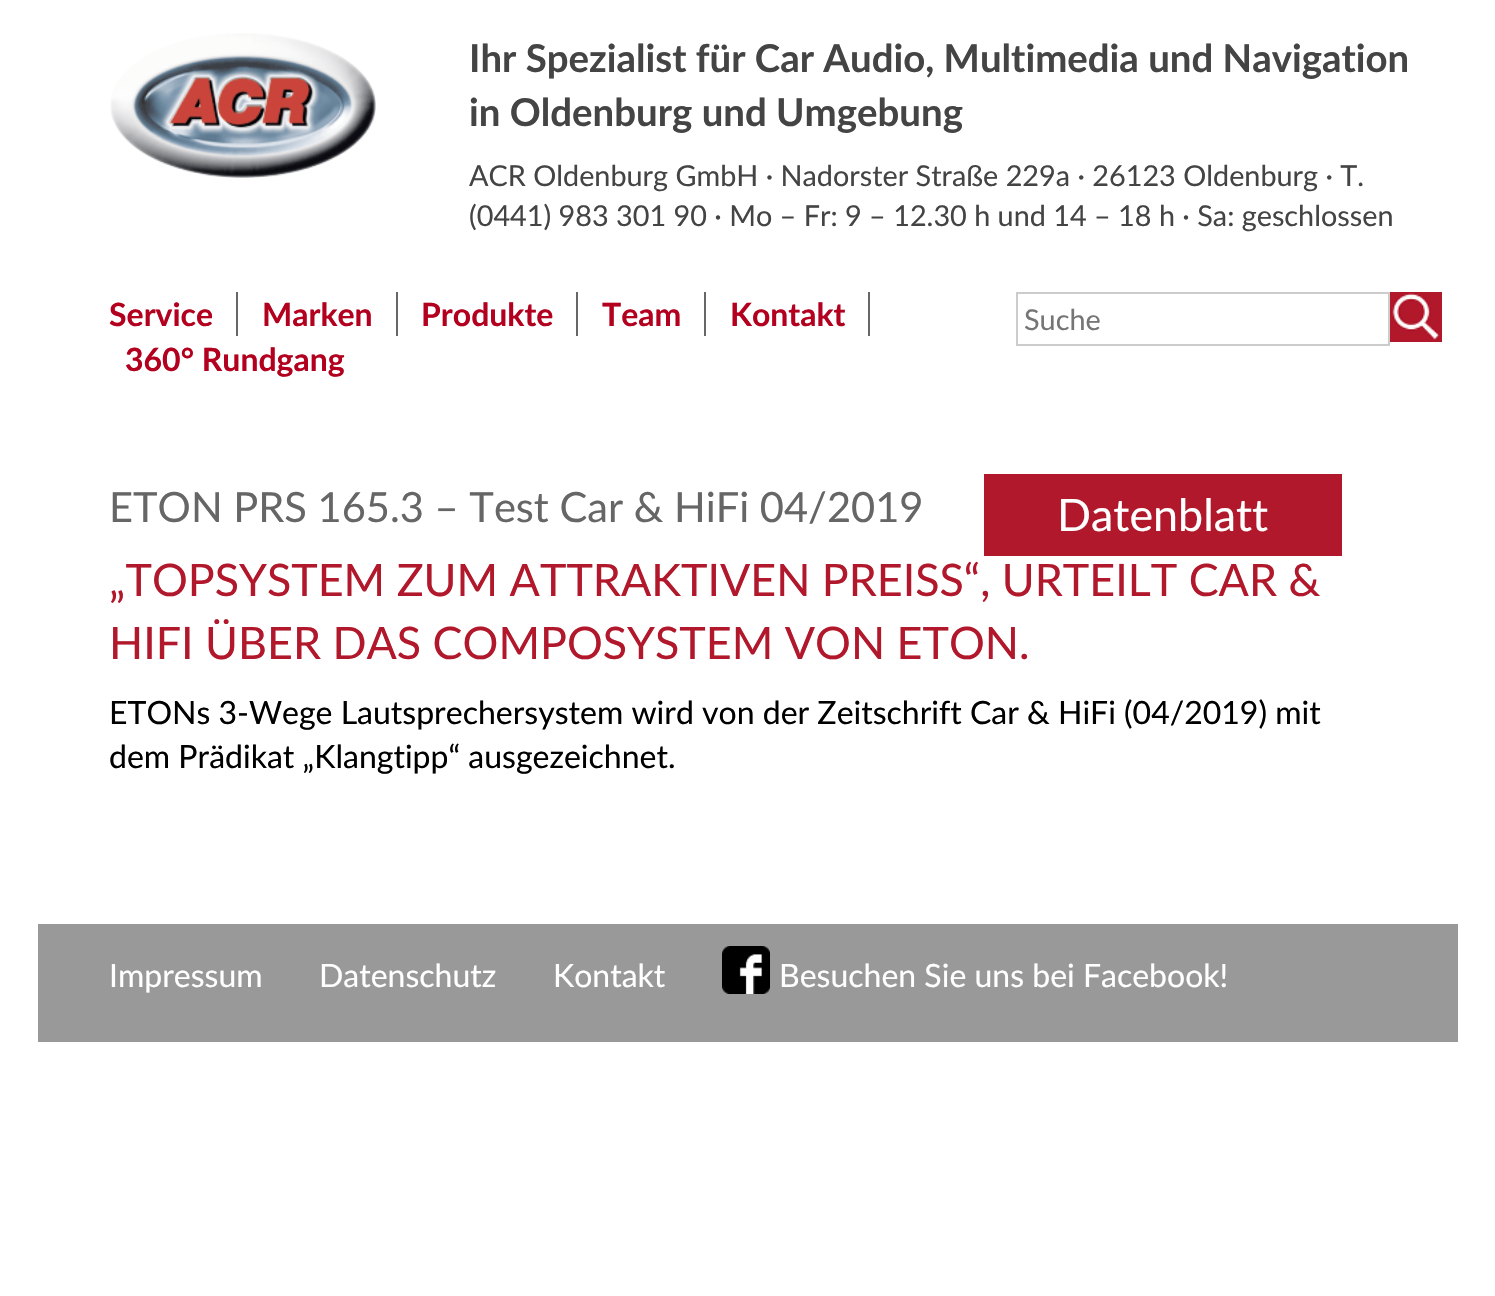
void draw(SkCanvas* canvas) {
	SkPaint fill;
	fill.setAntiAlias(true);
	auto makeFont = [&](const char* family, int weight, float size, bool italic = false) {
		SkFontStyle style(weight, SkFontStyle::kNormal_Width,
			italic ? SkFontStyle::kItalic_Slant : SkFontStyle::kUpright_Slant);
		SkFont result(fontMgr->matchFamilyStyle(family, style), size);
		result.setSubpixel(true);
		return result;
	};
	auto text = [&](const char* s, float x, float y, const SkFont& font) {
		canvas->drawString(s, x, y, font, fill);
	};
	auto box = [&](float l, float t, float r, float b) {
		canvas->drawRect(SkRect::MakeLTRB(l, t, r, b), fill);
	};
	auto picture = [&](const char* path, float l, float t, float r, float b) {
		auto image = SkImages::DeferredFromEncodedData(SkData::MakeFromFileName(path));
		canvas->drawImageRect(image, SkRect::MakeLTRB(l, t, r, b), SkSamplingOptions());
	};
	canvas->clear(0xFFFFFFFF);
	picture("image0.png", 110, 33, 376, 178);
	fill.setColor(0xFF666666);
	box(236, 292, 238, 336);
	box(396, 292, 398, 336);
	box(576, 292, 578, 336);
	box(704, 292, 706, 336);
	box(868, 292, 870, 336);
	fill.setStyle(SkPaint::kStroke_Style);
	fill.setStrokeWidth(2);
	fill.setColor(0xFFCCCCCC);
	canvas->drawRect(SkRect::MakeLTRB(1017, 293, 1389, 345), fill);
	picture("image1.png", 1390, 292, 1442, 342);
	fill.setStyle(SkPaint::kFill_Style);
	fill.setColor(0xFFB2182B);
	box(984, 474, 1342, 556);
	fill.setColor(0xFF999999);
	box(38, 924, 1458, 1042);
	picture("image2.png", 722, 946, 770, 994);
	auto font1 = makeFont("Lato", 700, 38.4f);
	fill.setColor(0xFF444444);
	text("Ihr Spezialist für Car Audio, Multimedia und Navigation", 469, 72, font1);
	text("in Oldenburg und Umgebung", 469, 126, font1);
	auto font2 = makeFont("Lato", 400, 28.8f);
	text("ACR Oldenburg GmbH · Nadorster Straße 229a · 26123 Oldenburg · T.", 469, 186, font2);
	text("(0441) 983 301 90 · Mo – Fr: 9 – 12.30 h und 14 – 18 h · Sa: geschlossen", 469, 226, font2);
	auto font3 = makeFont("Lato", 700, 32);
	fill.setColor(0xFFB3001E);
	text("Service", 109, 326, font3);
	text("Marken", 262, 326, font3);
	text("Produkte", 421, 326, font3);
	text("Team", 602, 326, font3);
	text("Kontakt", 730, 326, font3);
	text("360° Rundgang", 125, 371, font3);
	fill.setColor(0xFF757575);
	text("Suche", 1024, 330, font2);
	auto font4 = makeFont("Lato", 400, 41.6f);
	fill.setColor(0xFF666666);
	text("ETON PRS 165.3 – Test Car & HiFi 04/2019", 109, 522, font4);
	auto font5 = makeFont("Lato", 400, 44.8f);
	fill.setColor(0xFFFFFFFF);
	text("Datenblatt", 1057, 531, font5);
	fill.setColor(0xFFB2182B);
	text("„TOPSYSTEM ZUM ATTRAKTIVEN PREISS“, URTEILT CAR &", 109, 596, font5);
	text("HIFI ÜBER DAS COMPOSYSTEM VON ETON.", 109, 659, font5);
	auto font6 = makeFont("Lato", 400, 32);
	fill.setColor(0xFF000000);
	text("ETONs 3-Wege Lautsprechersystem wird von der Zeitschrift Car & HiFi (04/2019) mit", 109, 724, font6);
	text("dem Prädikat „Klangtipp“ ausgezeichnet.", 109, 768, font6);
	fill.setColor(0xFFFFFFFF);
	text("Impressum", 109, 987, font6);
	text("Datenschutz", 319, 987, font6);
	text("Kontakt", 553, 987, font6);
	text("Besuchen Sie uns bei Facebook!", 779, 987, font6);
}
